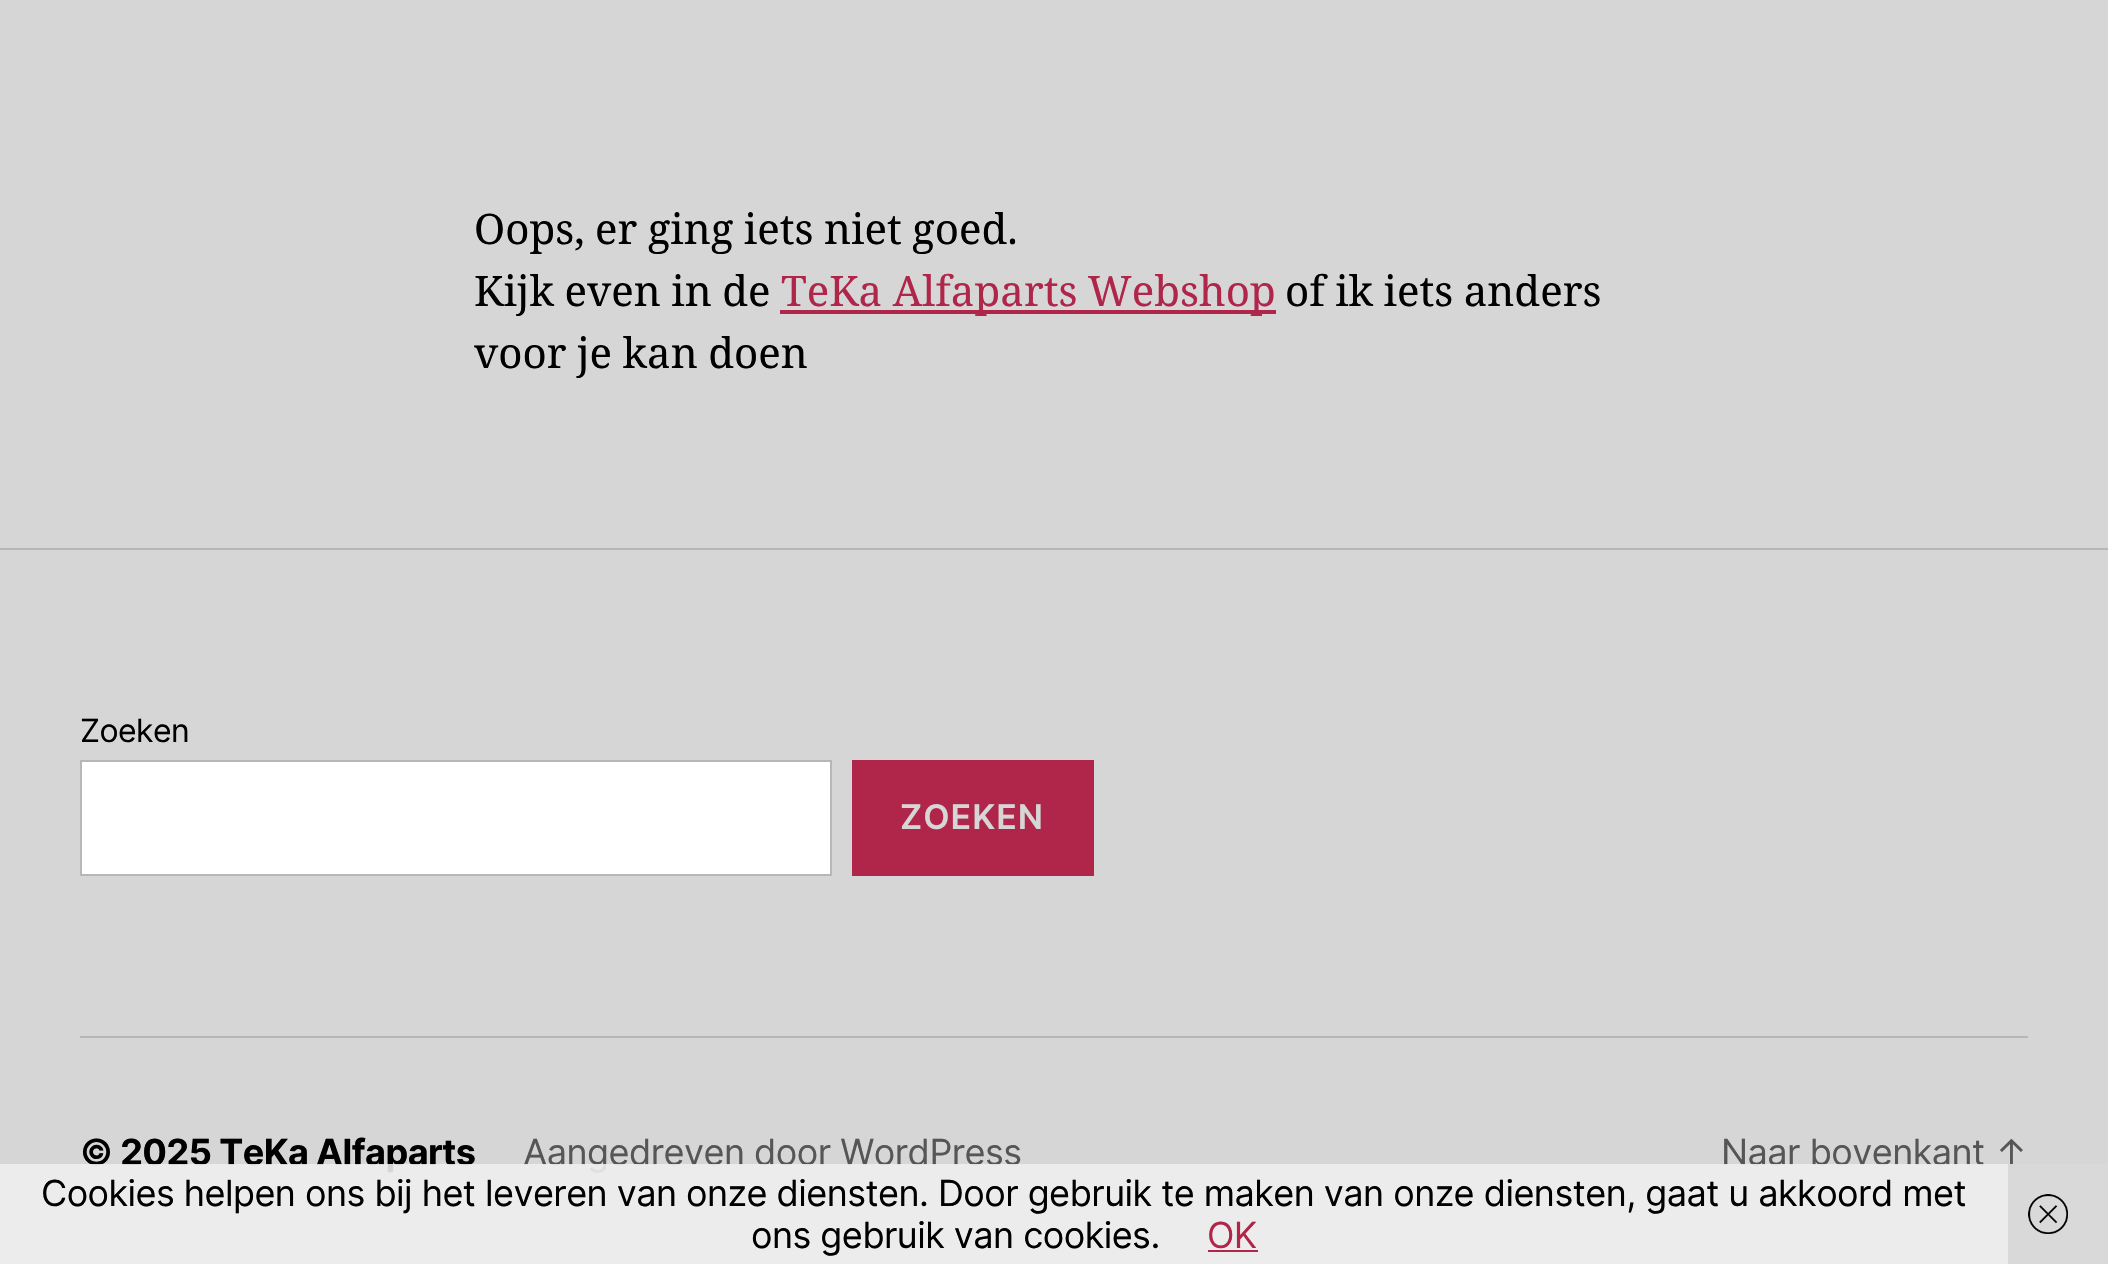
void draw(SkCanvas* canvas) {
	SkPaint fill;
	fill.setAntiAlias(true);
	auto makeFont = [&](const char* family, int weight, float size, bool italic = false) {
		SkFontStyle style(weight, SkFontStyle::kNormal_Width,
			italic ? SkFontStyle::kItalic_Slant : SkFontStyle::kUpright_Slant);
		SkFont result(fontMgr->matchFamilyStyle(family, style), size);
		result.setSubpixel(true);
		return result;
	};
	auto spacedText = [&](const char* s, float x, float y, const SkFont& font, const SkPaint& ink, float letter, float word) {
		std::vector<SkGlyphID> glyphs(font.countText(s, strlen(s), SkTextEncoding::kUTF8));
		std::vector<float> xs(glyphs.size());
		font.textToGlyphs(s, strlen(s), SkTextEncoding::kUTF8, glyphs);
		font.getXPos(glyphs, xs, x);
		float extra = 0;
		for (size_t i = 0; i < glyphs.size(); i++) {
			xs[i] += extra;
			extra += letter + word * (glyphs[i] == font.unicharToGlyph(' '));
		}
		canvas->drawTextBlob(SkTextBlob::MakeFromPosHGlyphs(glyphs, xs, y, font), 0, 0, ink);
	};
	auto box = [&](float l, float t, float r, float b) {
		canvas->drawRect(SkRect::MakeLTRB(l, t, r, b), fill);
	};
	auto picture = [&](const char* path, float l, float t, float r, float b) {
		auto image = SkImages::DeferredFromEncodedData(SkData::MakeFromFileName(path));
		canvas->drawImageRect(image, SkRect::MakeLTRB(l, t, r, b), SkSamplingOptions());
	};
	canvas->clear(0xFFD6D6D6);
	fill.setColor(0xFFB0254A);
	box(780, 310, 1276, 314);
	fill.setColor(0xFFB7B7B7);
	box(0, 548, 2108, 550);
	box(80, 1036, 2028, 1038);
	fill.setColor(0xFFFFFFFF);
	canvas->drawRect(SkRect::MakeLTRB(81, 761, 831, 875), fill);
	fill.setStyle(SkPaint::kStroke_Style);
	fill.setStrokeWidth(2);
	fill.setColor(0xFFB7B7B7);
	canvas->drawRect(SkRect::MakeLTRB(81, 761, 831, 875), fill);
	fill.setStyle(SkPaint::kFill_Style);
	fill.setColor(0xFFB0254A);
	box(852, 760, 1094, 876);
	auto font1 = makeFont("Noto Serif", 400, 42);
	fill.setColor(0xFF000000);
	spacedText("Oops, er ging iets niet goed.", 474, 244, font1, fill, 0, -0.5f);
	spacedText("Kijk even in de", 474, 306, font1, fill, 0, -0.5f);
	fill.setColor(0xFFB0254A);
	spacedText("TeKa Alfaparts Webshop", 781, 306, font1, fill, 0, -0.5f);
	fill.setColor(0xFF000000);
	spacedText("of ik iets anders", 1285, 306, font1, fill, 0, -0.5f);
	spacedText("voor je kan doen", 474, 368, font1, fill, 0, -0.5f);
	auto font2 = makeFont("Inter", 400, 32);
	spacedText("Zoeken", 80, 742, font2, fill, -0.54f, 0);
	auto font3 = makeFont("Inter", 600, 34);
	fill.setColor(0xFFD6D6D6);
	spacedText("ZOEKEN", 900, 829, font3, fill, 1, 0);
	auto font4 = makeFont("Inter", 700, 36);
	fill.setColor(0xFF000000);
	spacedText("© 2025 TeKa Alfaparts", 80, 1165, font4, fill, -0.54f, 0);
	auto font5 = makeFont("Inter", 400, 36);
	fill.setColor(0xFF565656);
	spacedText("Aangedreven door WordPress", 523, 1165, font5, fill, -0.54f, 0);
	spacedText("Naar bovenkant ↑", 1721, 1165, font5, fill, -0.54f, 0);
	fill.setColor(0xE6EEEEEE);
	box(0, 1164, 2108, 1264);
	fill.setColor(0xFF000000);
	spacedText("Cookies helpen ons bij het leveren van onze diensten. Door gebruik te maken van onze diensten, gaat u akkoord met", 41, 1206, font5, fill, -0.54f, 0);
	spacedText("ons gebruik van cookies.", 751, 1248, font5, fill, -0.54f, 0);
	fill.setColor(0xFFB0254A);
	spacedText("OK", 1207, 1248, font5, fill, -0.54f, 0);
	box(1208, 1250, 1258, 1252);
	fill.setColor(0x99CCCCCC);
	box(2008, 1164, 2108, 1264);
	picture("image0.png", 2028, 1194, 2068, 1234);
}
